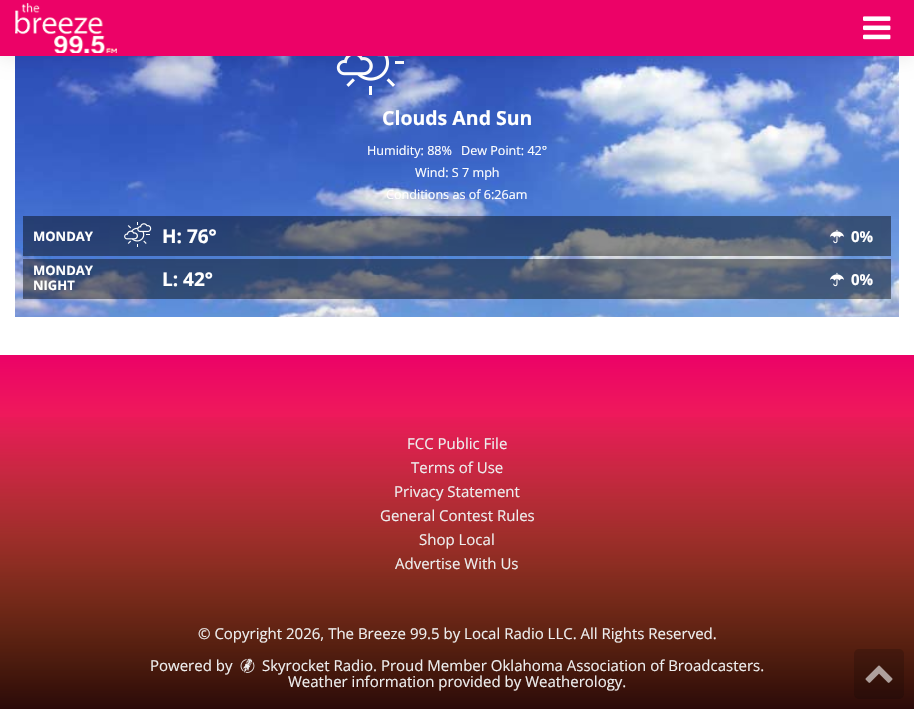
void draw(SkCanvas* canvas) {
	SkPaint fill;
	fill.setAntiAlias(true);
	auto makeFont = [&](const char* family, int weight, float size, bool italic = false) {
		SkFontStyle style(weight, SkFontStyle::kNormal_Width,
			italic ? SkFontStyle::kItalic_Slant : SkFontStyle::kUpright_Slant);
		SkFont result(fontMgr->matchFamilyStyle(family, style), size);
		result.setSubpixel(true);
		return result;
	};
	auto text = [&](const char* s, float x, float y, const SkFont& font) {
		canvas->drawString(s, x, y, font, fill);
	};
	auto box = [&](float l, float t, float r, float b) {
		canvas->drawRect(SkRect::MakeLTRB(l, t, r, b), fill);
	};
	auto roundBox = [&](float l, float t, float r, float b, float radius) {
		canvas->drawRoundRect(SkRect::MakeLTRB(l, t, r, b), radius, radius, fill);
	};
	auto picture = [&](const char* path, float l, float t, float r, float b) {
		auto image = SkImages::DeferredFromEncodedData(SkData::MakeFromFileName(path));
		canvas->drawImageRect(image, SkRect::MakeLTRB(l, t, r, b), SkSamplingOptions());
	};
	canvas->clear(0xFFFFFFFF);
	picture("image2.png", 15, 56, 899, 317);
	picture("image3.png", 336, 56, 404, 95);
	fill.setColor(0x1A000000);
	fill.setMaskFilter(SkMaskFilter::MakeBlur(kNormal_SkBlurStyle, 10));
	canvas->drawRect(SkRect::MakeLTRB(0, 0, 914, 56), fill);
	fill.setMaskFilter(nullptr);
	fill.setColor(0xFFEC0267);
	box(0, 0, 914, 56);
	picture("image0.png", 15, 3, 117, 53);
	picture("image1.png", 863, 16, 891, 40);
	fill.setColor(0x73000000);
	box(23, 216, 891, 256);
	picture("image4.png", 124, 222, 152, 247);
	picture("image5.png", 830, 229, 844, 244);
	box(23, 259, 891, 299);
	picture("image6.png", 830, 272, 844, 287);
	{
		const SkColor colors[] = {0xFFEC0267, 0xFFF98921};
		const float stops[] = {0, 1};
		const SkPoint ends[] = {{457, 355}, {457, 709}};
		fill.setShader(SkGradientShader::MakeLinear(ends, colors, stops, 2, SkTileMode::kClamp));
		fill.setAlpha(255);
	}
	box(0, 355, 914, 707);
	{
		const SkColor colors[] = {0x002B0908, 0xFF2B0908};
		const float stops[] = {0, 1};
		const SkPoint ends[] = {{457, 411}, {457, 709}};
		fill.setShader(SkGradientShader::MakeLinear(ends, colors, stops, 2, SkTileMode::kClamp));
		fill.setAlpha(255);
	}
	box(0, 417, 914, 709);
	picture("image7.png", 240, 658, 255, 673);
	fill.setShader(nullptr);
	fill.setColor(0x2E000000);
	roundBox(854, 649, 904, 699, 5);
	picture("image8.png", 865, 665, 893, 683);
	auto font1 = makeFont("Open Sans", 700, 19.5f);
	fill.setColor(0xFFFFFFFF);
	text("Clouds And Sun", 382, 125, font1);
	auto font2 = makeFont("Open Sans", 400, 12.6f);
	text("Humidity: 88%", 367, 155, font2);
	text("Dew Point: 42°", 461, 155, font2);
	text("Wind: S 7 mph", 415, 177, font2);
	text("Conditions as of 6:26am", 386, 199, font2);
	auto font3 = makeFont("Open Sans", 700, 13);
	text("MONDAY", 33, 241, font3);
	auto font4 = makeFont("Open Sans", 700, 19);
	text("H: 76°", 162, 243, font4);
	auto font5 = makeFont("Open Sans", 700, 15);
	text("0%", 851, 242, font5);
	text("MONDAY", 33, 275, font3);
	text("NIGHT", 33, 290, font3);
	text("L: 42°", 162, 286, font4);
	text("0%", 851, 285, font5);
	auto font6 = makeFont("Open Sans", 400, 15);
	fill.setColor(0xFFEEEEEE);
	text("FCC Public File", 407, 449, font6);
	text("Terms of Use", 411, 473, font6);
	text("Privacy Statement", 394, 497, font6);
	text("General Contest Rules", 380, 521, font6);
	text("Shop Local", 419, 545, font6);
	text("Advertise With Us", 395, 569, font6);
	text("© Copyright 2026, The Breeze 99.5 by Local Radio LLC. All Rights Reserved.", 198, 639, font6);
	text("Powered by", 150, 671, font6);
	text("Skyrocket Radio. Proud Member Oklahoma Association of Broadcasters.", 262, 671, font6);
	text("Weather information provided by Weatherology.", 288, 687, font6);
}
